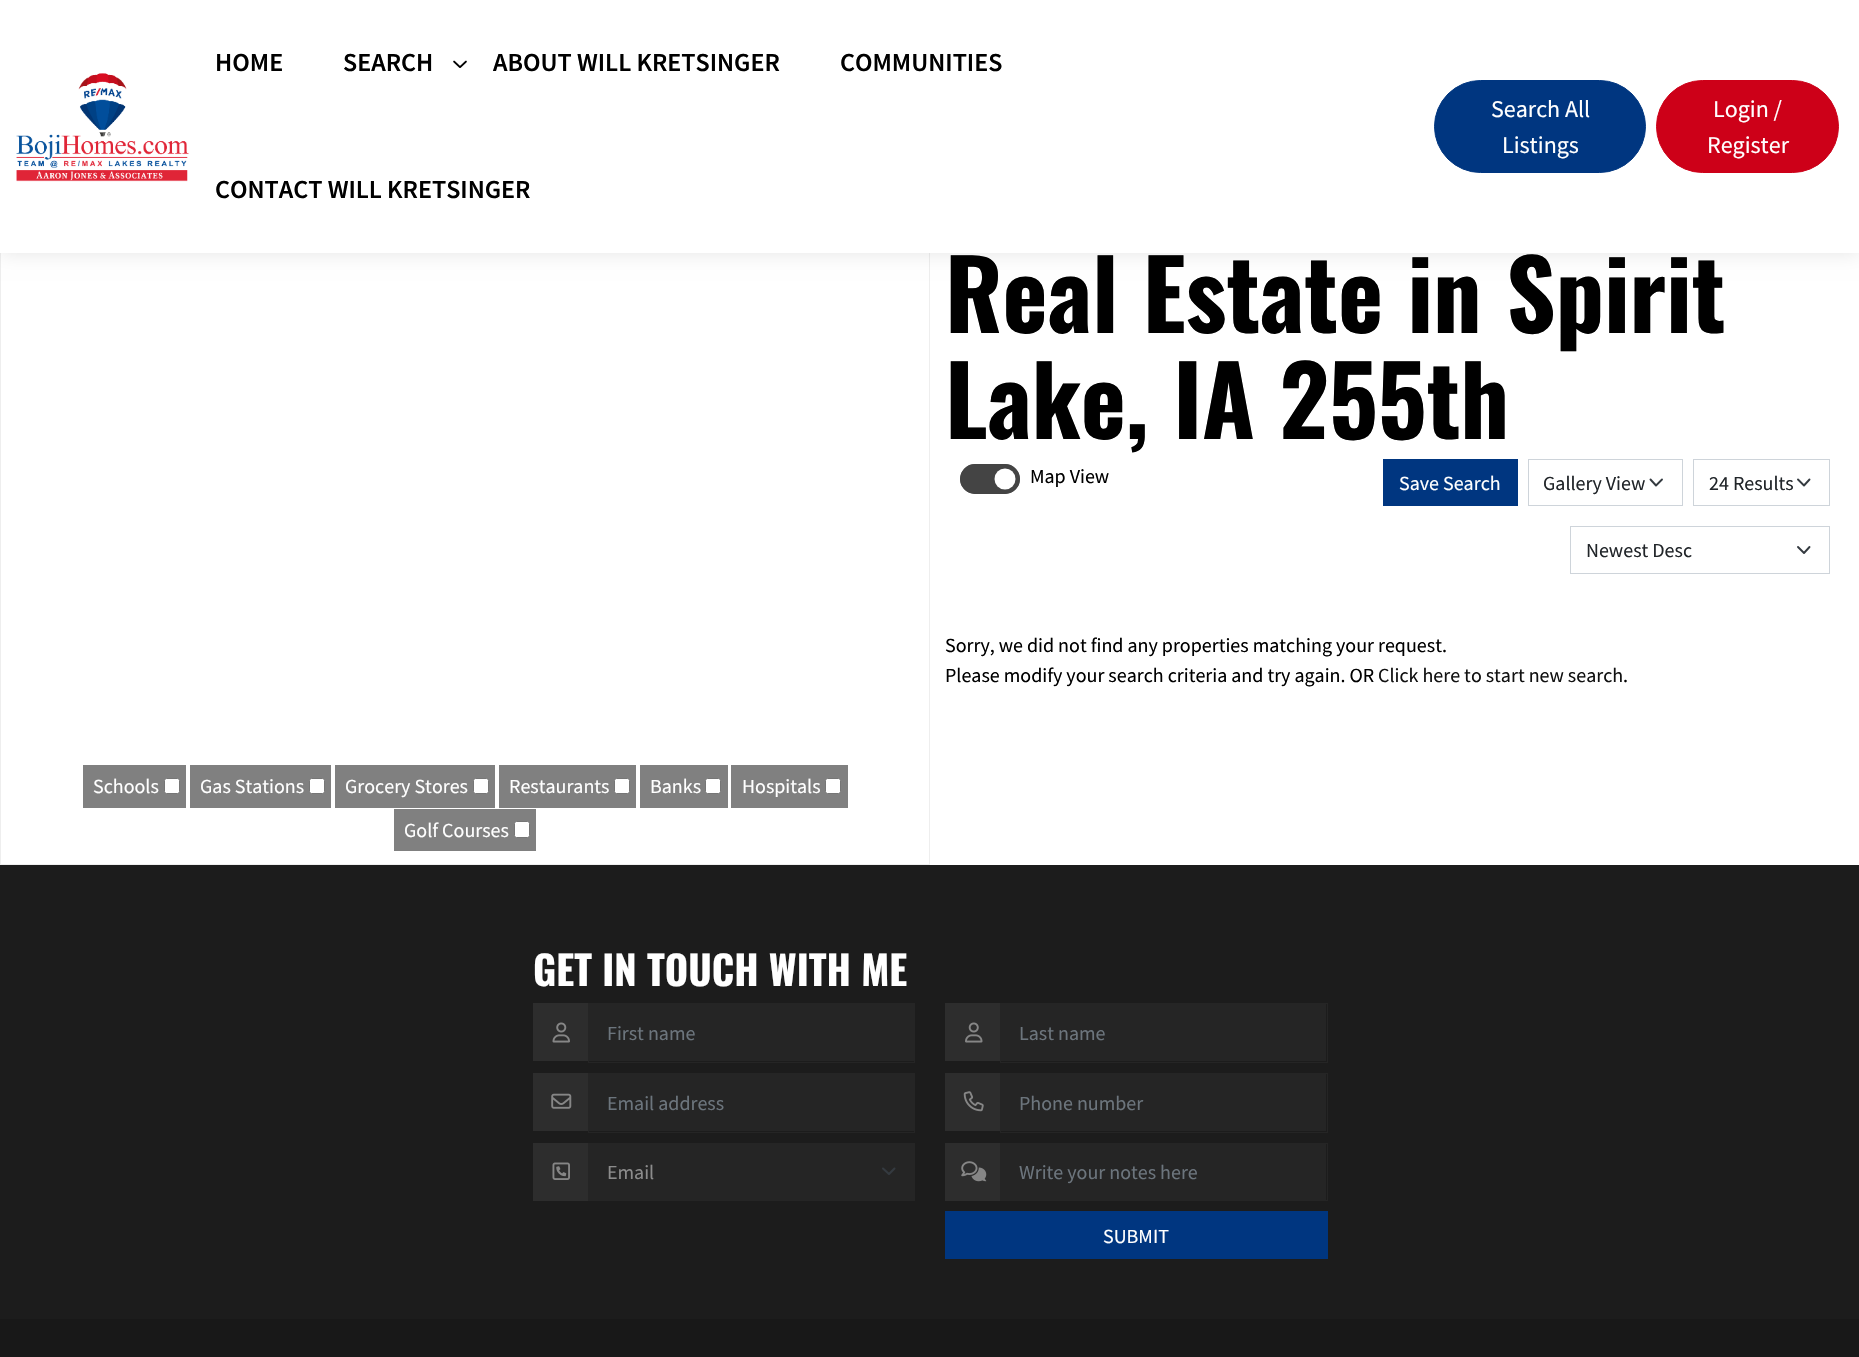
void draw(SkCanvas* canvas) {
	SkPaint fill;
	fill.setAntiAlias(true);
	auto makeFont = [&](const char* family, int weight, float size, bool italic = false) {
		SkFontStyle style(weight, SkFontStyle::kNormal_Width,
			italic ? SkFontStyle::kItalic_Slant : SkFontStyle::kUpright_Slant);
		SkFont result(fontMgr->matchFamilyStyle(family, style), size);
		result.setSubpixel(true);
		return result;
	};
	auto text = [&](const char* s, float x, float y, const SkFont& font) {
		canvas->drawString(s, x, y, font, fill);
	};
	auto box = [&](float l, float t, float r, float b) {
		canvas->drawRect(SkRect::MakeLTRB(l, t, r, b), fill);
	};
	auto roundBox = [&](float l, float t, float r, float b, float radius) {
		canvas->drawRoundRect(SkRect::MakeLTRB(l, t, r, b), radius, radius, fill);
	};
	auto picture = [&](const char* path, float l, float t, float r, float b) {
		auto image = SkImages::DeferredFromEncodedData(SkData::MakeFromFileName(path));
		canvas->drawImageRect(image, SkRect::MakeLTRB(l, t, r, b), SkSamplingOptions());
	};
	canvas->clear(0xFFFFFFFF);
	fill.setStyle(SkPaint::kStroke_Style);
	fill.setStrokeWidth(1);
	fill.setColor(0xFFEEEEEE);
	canvas->drawRect(SkRect::MakeLTRB(0.5f, 238.5f, 929.5f, 864.5f), fill);
	fill.setStyle(SkPaint::kFill_Style);
	fill.setColor(0x1A000000);
	fill.setMaskFilter(SkMaskFilter::MakeBlur(kNormal_SkBlurStyle, 9.5f));
	canvas->drawRect(SkRect::MakeLTRB(0, 0, 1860, 253), fill);
	fill.setMaskFilter(nullptr);
	fill.setColor(0xFFFFFFFF);
	box(0, 0, 1859, 253);
	picture("image0.png", 16, 73, 189, 182);
	picture("image1.png", 453, 60, 467, 68);
	fill.setColor(0xFF003680);
	canvas->drawRoundRect(SkRect::MakeLTRB(1434.5f, 80.5f, 1645.5f, 172.5f), 46, 46, fill);
	fill.setStyle(SkPaint::kStroke_Style);
	canvas->drawRoundRect(SkRect::MakeLTRB(1434.5f, 80.5f, 1645.5f, 172.5f), 46, 46, fill);
	fill.setStyle(SkPaint::kFill_Style);
	fill.setColor(0xFFCD0018);
	canvas->drawRoundRect(SkRect::MakeLTRB(1656.5f, 80.5f, 1838.5f, 172.5f), 46, 46, fill);
	fill.setStyle(SkPaint::kStroke_Style);
	canvas->drawRoundRect(SkRect::MakeLTRB(1656.5f, 80.5f, 1838.5f, 172.5f), 46, 46, fill);
	fill.setStyle(SkPaint::kFill_Style);
	fill.setColor(0xFF444444);
	roundBox(960, 464, 1020, 494, 15);
	fill.setColor(0xFFFFFFFF);
	canvas->drawCircle(1005, 479, 10.5f, fill);
	fill.setStyle(SkPaint::kStroke_Style);
	fill.setColor(0xFF444444);
	canvas->drawRoundRect(SkRect::MakeLTRB(960.5f, 464.5f, 1019.5f, 493.5f), 14.5f, 14.5f, fill);
	fill.setStyle(SkPaint::kFill_Style);
	fill.setColor(0xFF003680);
	box(1383, 459, 1518, 506);
	fill.setStyle(SkPaint::kStroke_Style);
	fill.setStrokeWidth(1.9f);
	fill.setStrokeCap(SkPaint::kRound_Cap);
	fill.setStrokeJoin(SkPaint::kRound_Join);
	fill.setColor(0xFF343A40);
	canvas->drawPath(SkPathBuilder().moveTo(1650.5f, 479.5f).lineTo(1656, 485.5f).lineTo(1662, 479.5f).detach(), fill);
	fill.setStrokeWidth(1);
	fill.setStrokeCap(SkPaint::kButt_Cap);
	fill.setStrokeJoin(SkPaint::kMiter_Join);
	fill.setColor(0xFFCED4DA);
	canvas->drawRect(SkRect::MakeLTRB(1528.5f, 459.5f, 1682.5f, 505.5f), fill);
	fill.setStrokeWidth(1.9f);
	fill.setStrokeCap(SkPaint::kRound_Cap);
	fill.setStrokeJoin(SkPaint::kRound_Join);
	fill.setColor(0xFF343A40);
	canvas->drawPath(SkPathBuilder().moveTo(1798, 479.5f).lineTo(1804, 485.5f).lineTo(1809.5f, 479.5f).detach(), fill);
	fill.setStrokeWidth(1);
	fill.setStrokeCap(SkPaint::kButt_Cap);
	fill.setStrokeJoin(SkPaint::kMiter_Join);
	fill.setColor(0xFFCED4DA);
	canvas->drawRect(SkRect::MakeLTRB(1693.5f, 459.5f, 1829.5f, 505.5f), fill);
	fill.setStrokeWidth(1.9f);
	fill.setStrokeCap(SkPaint::kRound_Cap);
	fill.setStrokeJoin(SkPaint::kRound_Join);
	fill.setColor(0xFF343A40);
	canvas->drawPath(SkPathBuilder().moveTo(1798, 547).lineTo(1804, 553).lineTo(1809.5f, 547).detach(), fill);
	fill.setStrokeWidth(1);
	fill.setStrokeCap(SkPaint::kButt_Cap);
	fill.setStrokeJoin(SkPaint::kMiter_Join);
	fill.setColor(0xFFCED4DA);
	canvas->drawRect(SkRect::MakeLTRB(1570.5f, 526.5f, 1829.5f, 573.5f), fill);
	fill.setStyle(SkPaint::kFill_Style);
	fill.setColor(0xFF808080);
	box(83, 765, 186, 808);
	fill.setColor(0xFFFFFFFF);
	canvas->drawRoundRect(SkRect::MakeLTRB(164.5f, 778.5f, 179.5f, 793.5f), 2, 2, fill);
	fill.setStyle(SkPaint::kStroke_Style);
	fill.setColor(0xFF767676);
	canvas->drawRoundRect(SkRect::MakeLTRB(164.5f, 778.5f, 179.5f, 793.5f), 2, 2, fill);
	fill.setStyle(SkPaint::kFill_Style);
	fill.setColor(0xFF808080);
	box(190, 765, 331, 808);
	fill.setColor(0xFFFFFFFF);
	canvas->drawRoundRect(SkRect::MakeLTRB(309.5f, 778.5f, 324.5f, 793.5f), 2, 2, fill);
	fill.setStyle(SkPaint::kStroke_Style);
	fill.setColor(0xFF767676);
	canvas->drawRoundRect(SkRect::MakeLTRB(309.5f, 778.5f, 324.5f, 793.5f), 2, 2, fill);
	fill.setStyle(SkPaint::kFill_Style);
	fill.setColor(0xFF808080);
	box(335, 765, 495, 808);
	fill.setColor(0xFFFFFFFF);
	canvas->drawRoundRect(SkRect::MakeLTRB(473.5f, 778.5f, 488.5f, 793.5f), 2, 2, fill);
	fill.setStyle(SkPaint::kStroke_Style);
	fill.setColor(0xFF767676);
	canvas->drawRoundRect(SkRect::MakeLTRB(473.5f, 778.5f, 488.5f, 793.5f), 2, 2, fill);
	fill.setStyle(SkPaint::kFill_Style);
	fill.setColor(0xFF808080);
	box(499, 765, 636, 808);
	fill.setColor(0xFFFFFFFF);
	canvas->drawRoundRect(SkRect::MakeLTRB(614.5f, 778.5f, 629.5f, 793.5f), 2, 2, fill);
	fill.setStyle(SkPaint::kStroke_Style);
	fill.setColor(0xFF767676);
	canvas->drawRoundRect(SkRect::MakeLTRB(614.5f, 778.5f, 629.5f, 793.5f), 2, 2, fill);
	fill.setStyle(SkPaint::kFill_Style);
	fill.setColor(0xFF808080);
	box(640, 765, 728, 808);
	fill.setColor(0xFFFFFFFF);
	canvas->drawRoundRect(SkRect::MakeLTRB(705.5f, 778.5f, 720.5f, 793.5f), 2, 2, fill);
	fill.setStyle(SkPaint::kStroke_Style);
	fill.setColor(0xFF767676);
	canvas->drawRoundRect(SkRect::MakeLTRB(705.5f, 778.5f, 720.5f, 793.5f), 2, 2, fill);
	fill.setStyle(SkPaint::kFill_Style);
	fill.setColor(0xFF808080);
	box(731, 765, 848, 808);
	fill.setColor(0xFFFFFFFF);
	canvas->drawRoundRect(SkRect::MakeLTRB(825.5f, 778.5f, 840.5f, 793.5f), 2, 2, fill);
	fill.setStyle(SkPaint::kStroke_Style);
	fill.setColor(0xFF767676);
	canvas->drawRoundRect(SkRect::MakeLTRB(825.5f, 778.5f, 840.5f, 793.5f), 2, 2, fill);
	fill.setStyle(SkPaint::kFill_Style);
	fill.setColor(0xFF808080);
	box(394, 809, 536, 851);
	fill.setColor(0xFFFFFFFF);
	canvas->drawRoundRect(SkRect::MakeLTRB(514.5f, 821.5f, 529.5f, 837.5f), 2, 2, fill);
	fill.setStyle(SkPaint::kStroke_Style);
	fill.setColor(0xFF767676);
	canvas->drawRoundRect(SkRect::MakeLTRB(514.5f, 821.5f, 529.5f, 837.5f), 2, 2, fill);
	fill.setStyle(SkPaint::kFill_Style);
	fill.setColor(0xFF1C1C1C);
	box(0, 865, 1859, 1319);
	fill.setColor(0xFF2D2D2D);
	box(533, 1003, 588, 1061);
	picture("image2.png", 552, 1022, 570, 1043);
	fill.setColor(0xFF252525);
	box(589, 1004, 914, 1061);
	fill.setStyle(SkPaint::kStroke_Style);
	canvas->drawRect(SkRect::MakeLTRB(588.5f, 1003.5f, 914.5f, 1062.5f), fill);
	fill.setStyle(SkPaint::kFill_Style);
	fill.setColor(0xFF2D2D2D);
	box(945, 1003, 1000, 1061);
	picture("image3.png", 965, 1022, 983, 1043);
	fill.setColor(0xFF252525);
	box(1001, 1004, 1326, 1061);
	fill.setStyle(SkPaint::kStroke_Style);
	canvas->drawRect(SkRect::MakeLTRB(1000.5f, 1003.5f, 1327.5f, 1062.5f), fill);
	fill.setStyle(SkPaint::kFill_Style);
	fill.setColor(0xFF2D2D2D);
	box(533, 1073, 588, 1131);
	picture("image4.png", 551, 1093, 572, 1109);
	fill.setColor(0xFF252525);
	box(589, 1074, 914, 1131);
	fill.setStyle(SkPaint::kStroke_Style);
	canvas->drawRect(SkRect::MakeLTRB(588.5f, 1073.5f, 914.5f, 1132.5f), fill);
	fill.setStyle(SkPaint::kFill_Style);
	fill.setColor(0xFF2D2D2D);
	box(945, 1073, 1000, 1131);
	picture("image5.png", 963, 1091, 984, 1112);
	fill.setColor(0xFF252525);
	box(1001, 1074, 1326, 1131);
	fill.setStyle(SkPaint::kStroke_Style);
	canvas->drawRect(SkRect::MakeLTRB(1000.5f, 1073.5f, 1327.5f, 1132.5f), fill);
	fill.setStyle(SkPaint::kFill_Style);
	fill.setColor(0xFF2D2D2D);
	box(533, 1143, 588, 1201);
	picture("image6.png", 552, 1162, 570, 1180);
	fill.setColor(0xFF252525);
	box(588, 1143, 915, 1201);
	fill.setStyle(SkPaint::kStroke_Style);
	fill.setStrokeWidth(1.9f);
	fill.setStrokeCap(SkPaint::kRound_Cap);
	fill.setStrokeJoin(SkPaint::kRound_Join);
	fill.setColor(0xFF343A40);
	canvas->drawPath(SkPathBuilder().moveTo(883, 1168.5f).lineTo(889, 1174).lineTo(894.5f, 1168.5f).detach(), fill);
	fill.setStyle(SkPaint::kFill_Style);
	fill.setColor(0xFF2D2D2D);
	box(945, 1143, 1000, 1201);
	picture("image7.png", 961, 1161, 987, 1182);
	fill.setColor(0xFF252525);
	box(1001, 1144, 1326, 1200);
	fill.setStyle(SkPaint::kStroke_Style);
	fill.setStrokeWidth(1);
	fill.setStrokeCap(SkPaint::kButt_Cap);
	fill.setStrokeJoin(SkPaint::kMiter_Join);
	canvas->drawRect(SkRect::MakeLTRB(1000.5f, 1143.5f, 1327.5f, 1200.5f), fill);
	fill.setStyle(SkPaint::kFill_Style);
	fill.setColor(0xFF003680);
	box(945, 1211, 1328, 1259);
	fill.setColor(0xFF181818);
	box(0, 1319, 1859, 1357);
	auto font1 = makeFont("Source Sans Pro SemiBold", 600, 26);
	fill.setColor(0xFF000000);
	text("HOME", 215, 71, font1);
	text("SEARCH", 343, 71, font1);
	text("ABOUT WILL KRETSINGER", 493, 71, font1);
	text("COMMUNITIES", 840, 71, font1);
	text("CONTACT WILL KRETSINGER", 215, 198, font1);
	auto font2 = makeFont("Source Sans Pro", 400, 24);
	fill.setColor(0xFFFFFFFF);
	text("Search All", 1491, 117, font2);
	text("Listings", 1502, 153, font2);
	text("Login /", 1713, 117, font2);
	text("Register", 1707, 153, font2);
	auto font3 = makeFont("Oswald", 700, 96);
	fill.setColor(0xFF000000);
	text("Real Estate in Spirit", 945, 333, font3);
	text("Lake, IA 255th", 945, 439, font3);
	auto font4 = makeFont("Source Sans Pro", 400, 20);
	text("Map View", 1030, 483, font4);
	fill.setColor(0xFFFFFFFF);
	text("Save Search", 1399, 490, font4);
	fill.setColor(0xFF212529);
	text("Gallery View", 1543, 490, font4);
	text("24 Results", 1709, 490, font4);
	text("Newest Desc", 1586, 557, font4);
	fill.setColor(0xFF000000);
	text("Sorry, we did not find any properties matching your request.", 945, 652, font4);
	text("Please modify your search criteria and try again. OR", 945, 682, font4);
	fill.setColor(0xFF111111);
	text("Click here to start new search", 1378, 682, font4);
	fill.setColor(0xFF000000);
	text(".", 1623, 682, font4);
	fill.setColor(0xFFFFFFFF);
	text("Schools", 93, 793, font4);
	text("Gas Stations", 200, 793, font4);
	text("Grocery Stores", 345, 793, font4);
	text("Restaurants", 509, 793, font4);
	text("Banks", 650, 793, font4);
	text("Hospitals", 742, 793, font4);
	text("Golf Courses", 404, 837, font4);
	auto font5 = makeFont("Oswald", 700, 40);
	text("GET IN TOUCH WITH ME", 533, 986, font5);
	fill.setColor(0xFF6C757D);
	text("First name", 607, 1040, font4);
	text("Last name", 1019, 1040, font4);
	text("Email address", 607, 1110, font4);
	text("Phone number", 1019, 1110, font4);
	fill.setColor(0xFF8C8C8C);
	text("Email", 607, 1179, font4);
	fill.setColor(0xFF6C757D);
	text("Write your notes here", 1019, 1179, font4);
	fill.setColor(0xFFFFFFFF);
	text("SUBMIT", 1103, 1243, font4);
}
